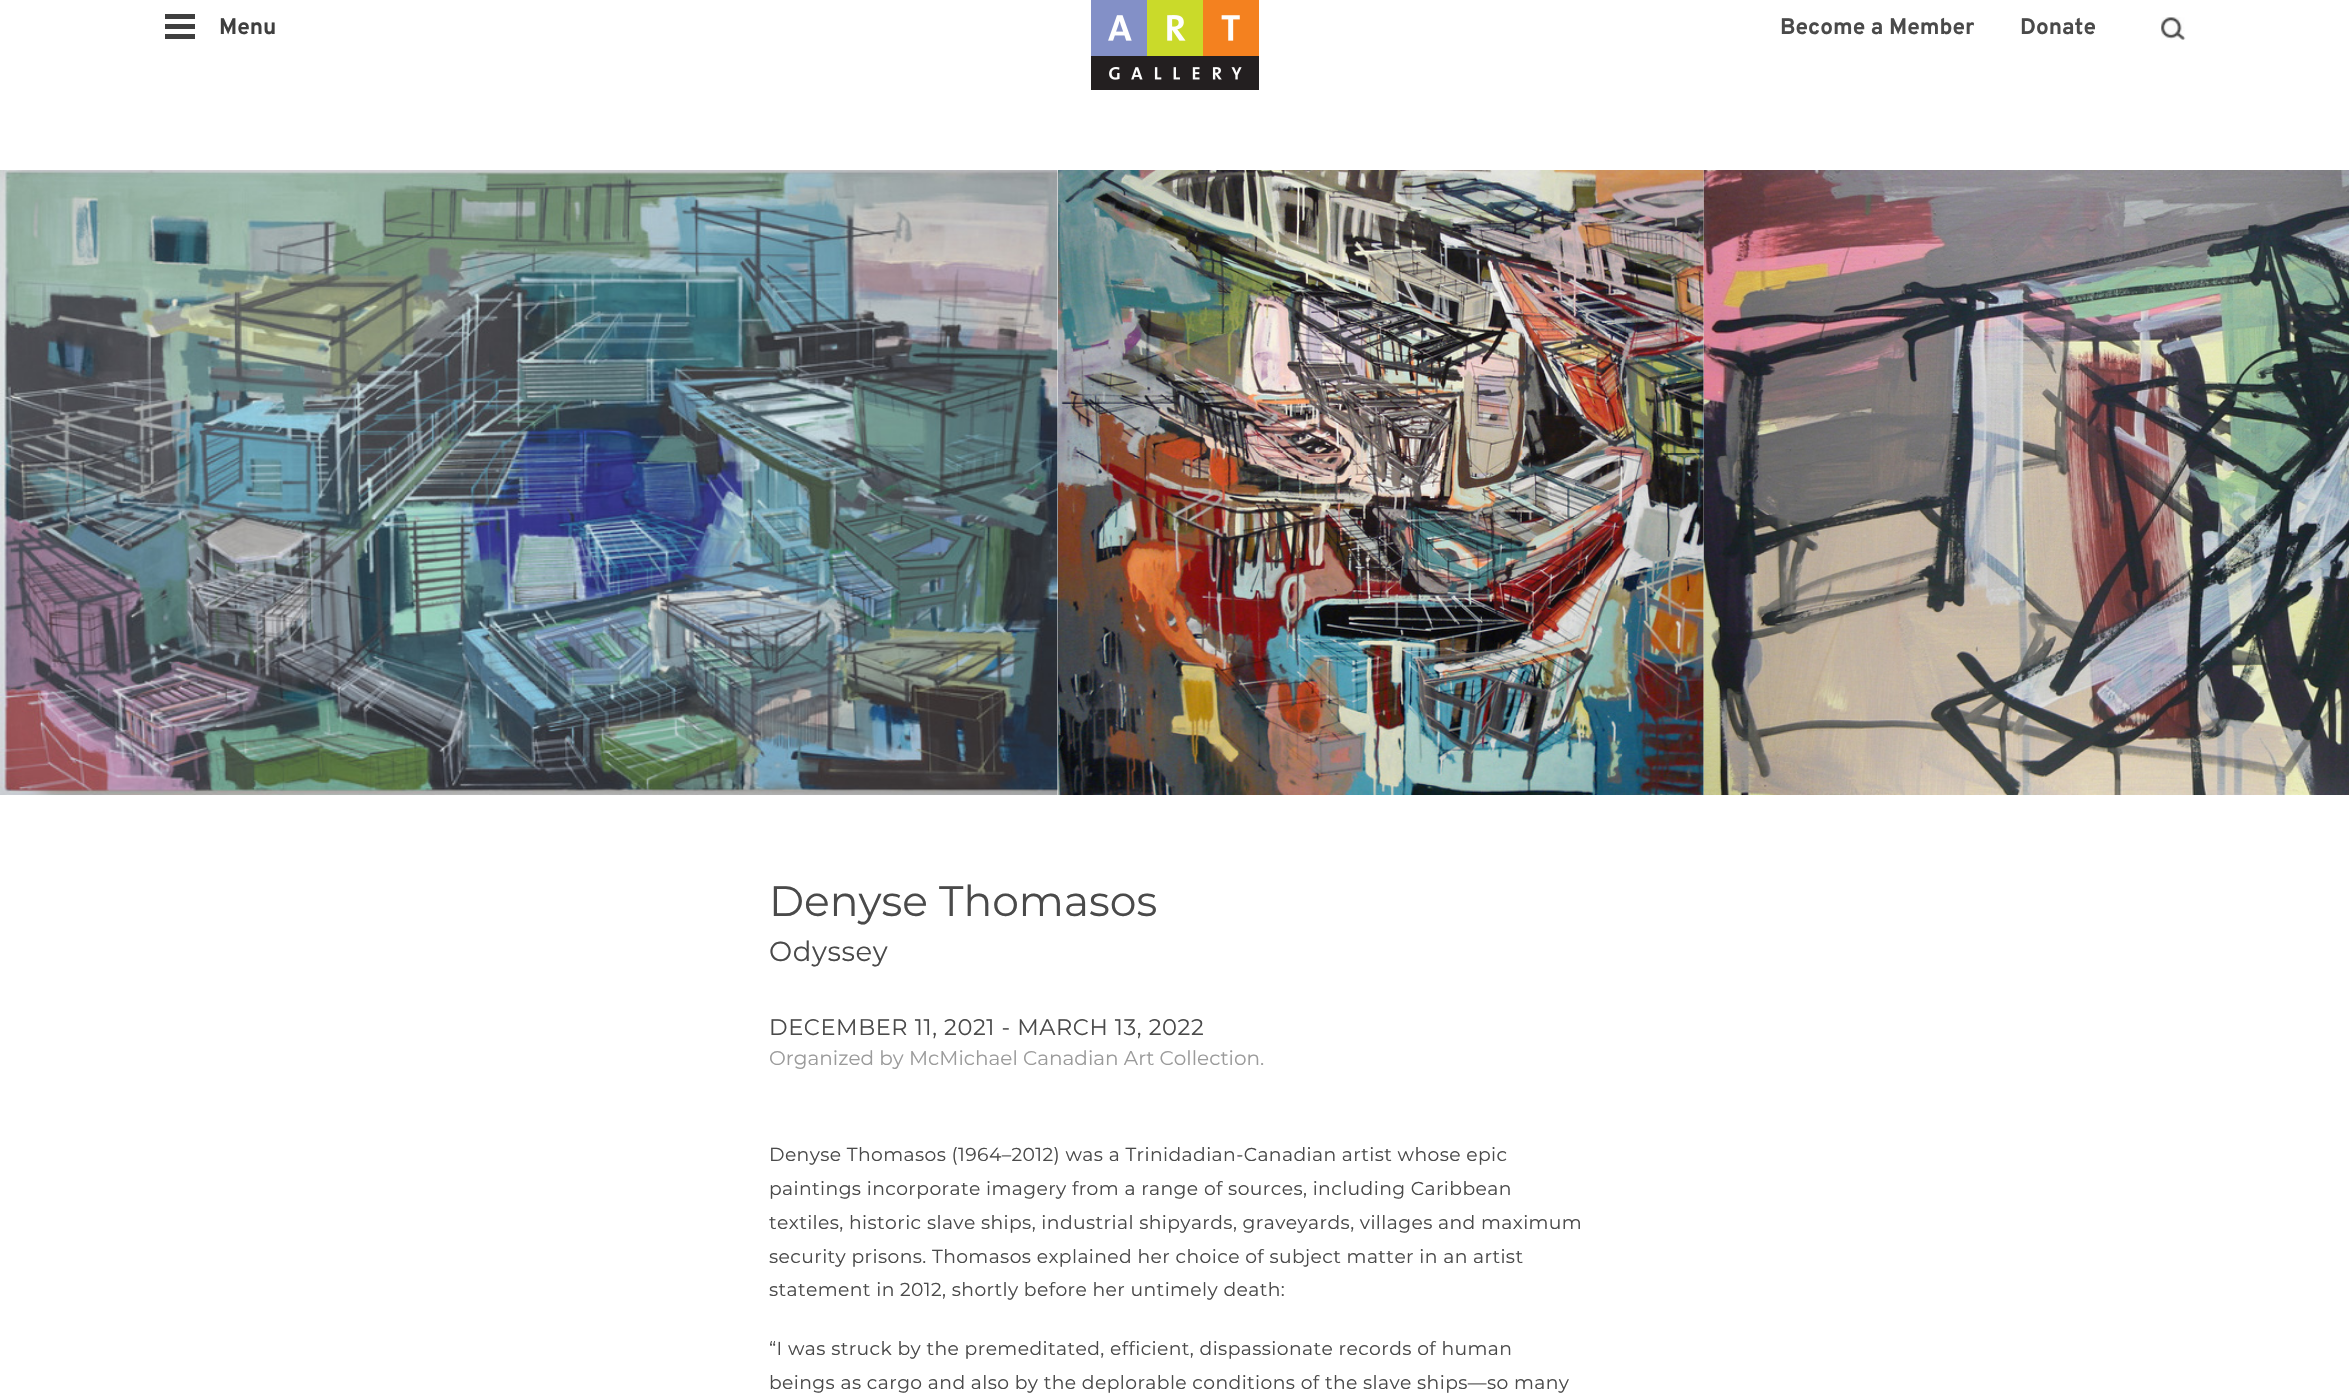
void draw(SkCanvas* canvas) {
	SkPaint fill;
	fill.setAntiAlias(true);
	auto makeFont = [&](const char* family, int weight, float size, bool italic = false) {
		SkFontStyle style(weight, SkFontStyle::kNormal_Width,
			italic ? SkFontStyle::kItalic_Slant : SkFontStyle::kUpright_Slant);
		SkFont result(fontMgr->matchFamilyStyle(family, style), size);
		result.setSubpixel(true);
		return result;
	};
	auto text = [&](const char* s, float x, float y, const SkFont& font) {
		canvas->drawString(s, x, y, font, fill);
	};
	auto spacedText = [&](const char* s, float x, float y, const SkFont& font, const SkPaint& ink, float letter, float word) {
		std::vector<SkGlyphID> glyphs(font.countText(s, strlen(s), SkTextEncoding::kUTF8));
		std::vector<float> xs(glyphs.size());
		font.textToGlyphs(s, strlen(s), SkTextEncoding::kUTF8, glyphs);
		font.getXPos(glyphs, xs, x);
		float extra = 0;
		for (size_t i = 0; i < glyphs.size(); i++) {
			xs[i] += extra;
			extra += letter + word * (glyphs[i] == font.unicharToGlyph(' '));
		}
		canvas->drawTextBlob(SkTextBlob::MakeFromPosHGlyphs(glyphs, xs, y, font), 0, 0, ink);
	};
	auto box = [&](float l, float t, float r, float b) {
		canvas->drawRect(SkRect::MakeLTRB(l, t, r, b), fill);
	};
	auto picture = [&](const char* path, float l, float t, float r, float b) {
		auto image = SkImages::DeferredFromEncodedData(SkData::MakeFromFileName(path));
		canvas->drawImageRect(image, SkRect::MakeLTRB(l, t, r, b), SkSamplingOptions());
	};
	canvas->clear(0xFFFFFFFF);
	fill.setColor(0xFF3F3F3F);
	box(165, 14, 195, 19);
	box(165, 24, 195, 29);
	box(165, 34, 195, 39);
	picture("image0.png", 1091, 0, 1259, 90);
	picture("image1.png", 2161, 17, 2186, 40);
	picture("image2.png", 0, 170, 1058, 795);
	picture("image3.png", 1058, 170, 1704, 795);
	picture("image4.png", 1703, 170, 2349, 795);
	auto font1 = makeFont("Overpass", 700, 22.5f);
	text("Menu", 219, 34, font1);
	fill.setColor(0xFF4A4A4A);
	text("Become a Member", 1780, 34, font1);
	text("Donate", 2020, 34, font1);
	auto font2 = makeFont("Montserrat", 400, 42.5f);
	text("Denyse Thomasos", 769, 916, font2);
	auto font3 = makeFont("Montserrat", 400, 27.5f);
	spacedText("Odyssey", 769, 961, font3, fill, 0.6f, 0);
	auto font4 = makeFont("Montserrat", 400, 22.5f);
	spacedText("DECEMBER 11, 2021 - MARCH 13, 2022", 769, 1035, font4, fill, 0.6f, 0);
	auto font5 = makeFont("Montserrat", 400, 20);
	fill.setColor(0xFF9B9B9B);
	text("Organized by McMichael Canadian Art Collection.", 769, 1065, font5);
	auto font6 = makeFont("Montserrat", 400, 18.75f);
	fill.setColor(0xFF4A4A4A);
	spacedText("Denyse Thomasos (1964–2012) was a Trinidadian-Canadian artist whose epic", 769, 1161, font6, fill, 0.4f, 0);
	spacedText("paintings incorporate imagery from a range of sources, including Caribbean", 769, 1195, font6, fill, 0.4f, 0);
	spacedText("textiles, historic slave ships, industrial shipyards, graveyards, villages and maximum", 769, 1229, font6, fill, 0.4f, 0);
	spacedText("security prisons. Thomasos explained her choice of subject matter in an artist", 769, 1263, font6, fill, 0.4f, 0);
	spacedText("statement in 2012, shortly before her untimely death:", 769, 1296, font6, fill, 0.4f, 0);
	spacedText("“I was struck by the premeditated, efficient, dispassionate records of human", 769, 1355, font6, fill, 0.4f, 0);
	spacedText("beings as cargo and also by the deplorable conditions of the slave ships—so many", 769, 1389, font6, fill, 0.4f, 0);
}
